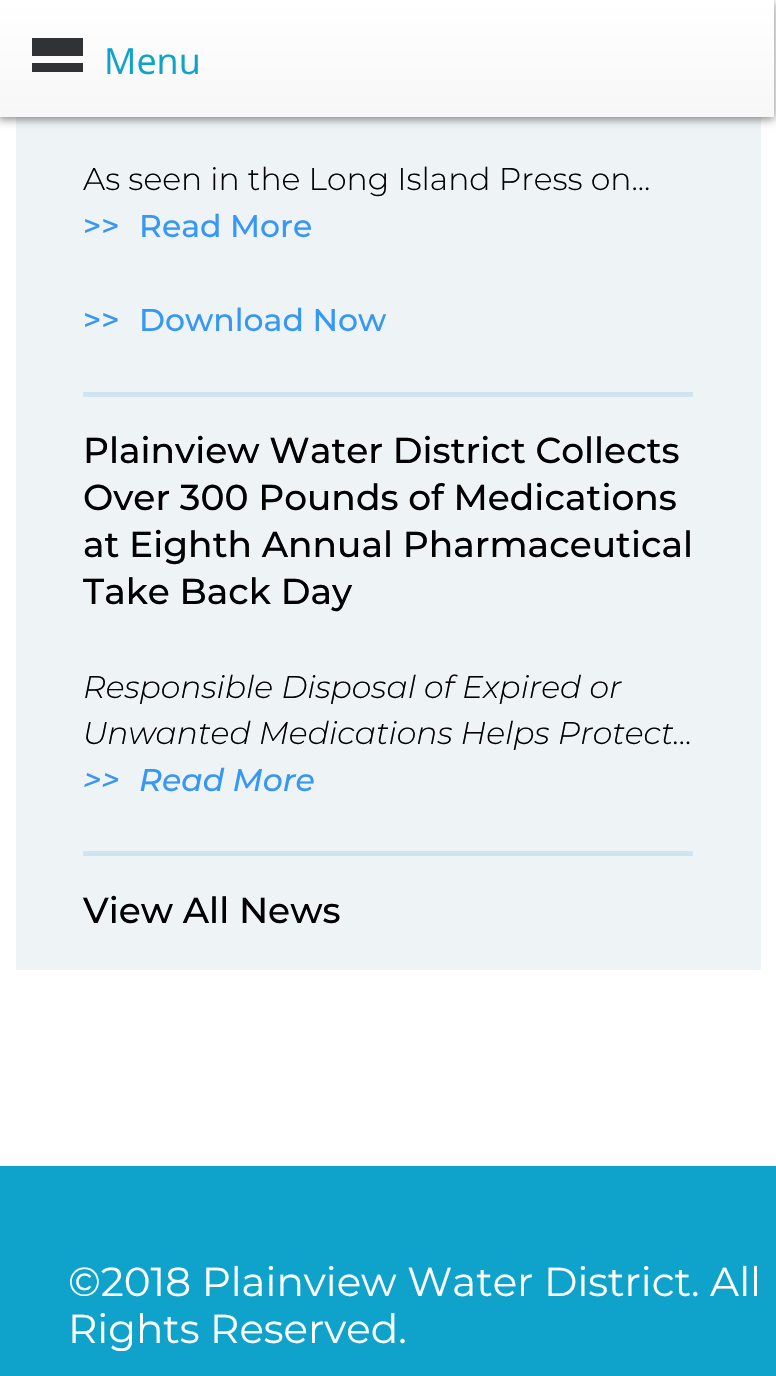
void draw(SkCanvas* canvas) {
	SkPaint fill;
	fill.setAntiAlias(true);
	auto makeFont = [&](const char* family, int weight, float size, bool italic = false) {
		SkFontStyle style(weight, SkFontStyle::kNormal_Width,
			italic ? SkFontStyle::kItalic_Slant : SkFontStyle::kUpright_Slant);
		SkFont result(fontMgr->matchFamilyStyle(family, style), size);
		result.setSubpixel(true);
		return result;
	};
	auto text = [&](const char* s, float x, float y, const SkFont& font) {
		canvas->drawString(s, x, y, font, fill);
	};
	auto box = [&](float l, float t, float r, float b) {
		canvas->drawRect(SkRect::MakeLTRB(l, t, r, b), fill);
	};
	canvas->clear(0xFFFFFFFF);
	fill.setColor(0xFFEEF3F6);
	box(16, 117, 761, 970);
	fill.setColor(0x80000000);
	fill.setMaskFilter(SkMaskFilter::MakeBlur(kNormal_SkBlurStyle, 4.5f));
	canvas->drawRect(SkRect::MakeLTRB(-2, 2, 774, 119), fill);
	fill.setMaskFilter(nullptr);
	{
		const SkColor colors[] = {0xFFFFFFFF, 0xFFF7F7F7};
		const float stops[] = {0, 1};
		const SkPoint ends[] = {{386, 0}, {386, 117}};
		fill.setShader(SkGradientShader::MakeLinear(ends, colors, stops, 2, SkTileMode::kClamp));
		fill.setAlpha(255);
	}
	box(0, 0, 774, 117);
	fill.setShader(nullptr);
	fill.setColor(0xFF303335);
	box(32, 38, 83, 56);
	box(32, 63, 83, 72);
	fill.setColor(0xFFCFE4F0);
	box(83, 392, 693, 397);
	box(83, 851, 693, 856);
	fill.setColor(0xFF0FA3CC);
	box(0, 1166, 776, 1376);
	auto font1 = makeFont("Open Sans", 400, 36);
	text("Menu", 104, 74, font1);
	auto font2 = makeFont("Montserrat", 300, 31.5f);
	fill.setColor(0xFF000000);
	text("As seen in the Long Island Press on...", 83, 190, font2);
	auto font3 = makeFont("Montserrat", 500, 31.5f);
	fill.setColor(0xFF3797F4);
	text(">>", 83, 237, font3);
	text("Read More", 139, 237, font3);
	text(">>", 83, 331, font3);
	text("Download Now", 139, 331, font3);
	auto font4 = makeFont("Montserrat", 500, 36);
	fill.setColor(0xFF000000);
	text("Plainview Water District Collects", 83, 463, font4);
	text("Over 300 Pounds of Medications", 83, 510, font4);
	text("at Eighth Annual Pharmaceutical", 83, 557, font4);
	text("Take Back Day", 83, 604, font4);
	auto font5 = makeFont("Montserrat", 300, 31.5f, true);
	text("Responsible Disposal of Expired or", 83, 698, font5);
	text("Unwanted Medications Helps Protect...", 83, 744, font5);
	auto font6 = makeFont("Montserrat", 500, 31.5f, true);
	fill.setColor(0xFF3797F4);
	text(">>", 83, 791, font6);
	text("Read More", 139, 791, font6);
	fill.setColor(0xFF000000);
	text("View All News", 83, 923, font4);
	auto font7 = makeFont("Montserrat", 400, 40.5f);
	fill.setColor(0xFFFFFFFF);
	text("©2018 Plainview Water District. All", 68, 1296, font7);
	text("Rights Reserved.", 68, 1343, font7);
}
